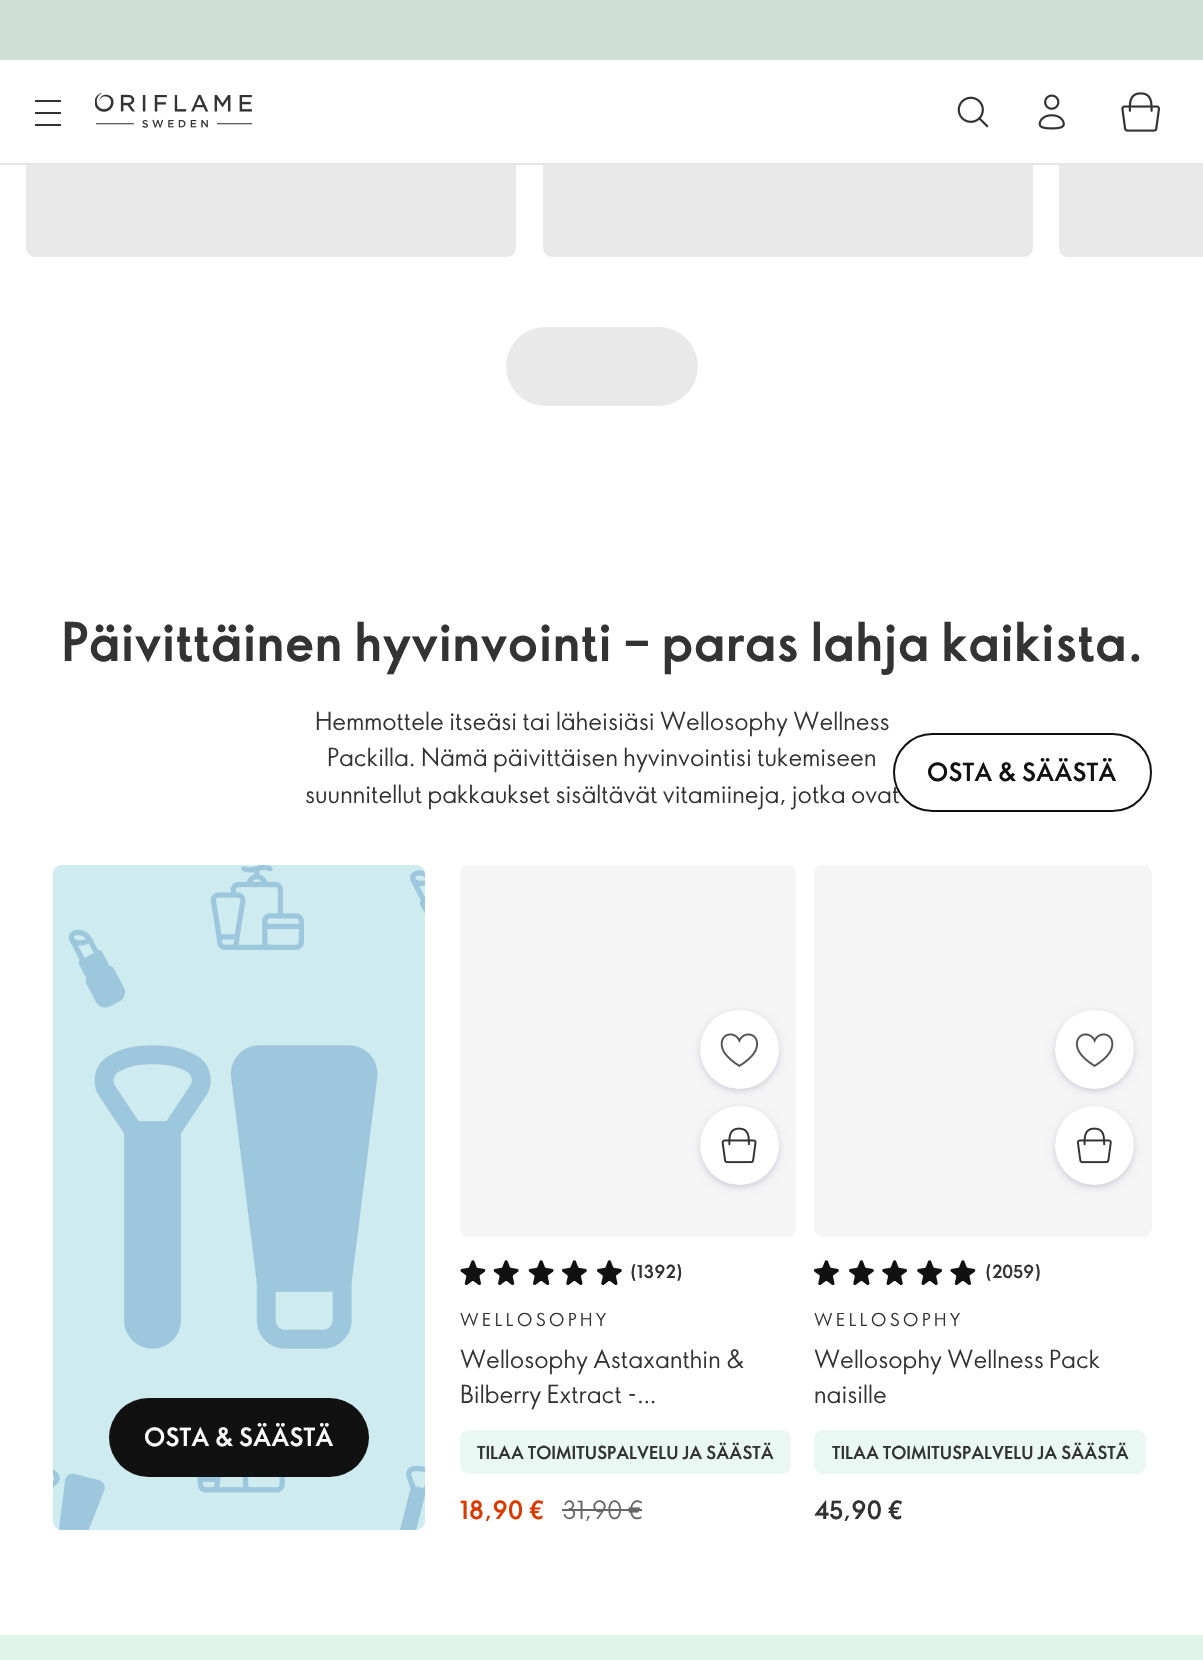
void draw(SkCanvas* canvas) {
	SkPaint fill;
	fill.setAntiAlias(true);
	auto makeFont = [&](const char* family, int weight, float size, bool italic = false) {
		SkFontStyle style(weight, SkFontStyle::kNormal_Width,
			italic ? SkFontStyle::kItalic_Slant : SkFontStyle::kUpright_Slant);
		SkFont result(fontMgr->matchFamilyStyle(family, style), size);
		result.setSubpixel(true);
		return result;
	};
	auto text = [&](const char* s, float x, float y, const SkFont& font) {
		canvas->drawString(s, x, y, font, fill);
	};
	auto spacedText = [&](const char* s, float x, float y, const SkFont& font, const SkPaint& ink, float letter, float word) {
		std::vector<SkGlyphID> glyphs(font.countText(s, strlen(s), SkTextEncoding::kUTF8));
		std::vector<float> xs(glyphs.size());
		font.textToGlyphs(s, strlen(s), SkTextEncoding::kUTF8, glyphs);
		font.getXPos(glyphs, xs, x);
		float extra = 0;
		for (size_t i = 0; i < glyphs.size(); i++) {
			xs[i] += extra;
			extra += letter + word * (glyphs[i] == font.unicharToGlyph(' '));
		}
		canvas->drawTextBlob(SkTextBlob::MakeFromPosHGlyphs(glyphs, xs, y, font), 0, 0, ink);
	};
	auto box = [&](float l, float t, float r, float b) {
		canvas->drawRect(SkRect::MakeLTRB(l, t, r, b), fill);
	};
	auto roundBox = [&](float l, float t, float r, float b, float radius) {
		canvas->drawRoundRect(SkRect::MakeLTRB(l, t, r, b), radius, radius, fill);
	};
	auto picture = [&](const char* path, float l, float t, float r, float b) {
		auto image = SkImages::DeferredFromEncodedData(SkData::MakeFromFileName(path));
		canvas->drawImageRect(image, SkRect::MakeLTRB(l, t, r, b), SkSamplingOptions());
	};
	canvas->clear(0xFFFFFFFF);
	fill.setColor(0xFFE9E9E9);
	roundBox(26, -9, 516, 257, 9);
	roundBox(543, -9, 1033, 257, 9);
	canvas->drawPath(SkPathBuilder().moveTo(1068, -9).lineTo(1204, -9).lineTo(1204, 257).lineTo(1068, 257).cubicTo(1063, 257, 1059, 253, 1059, 248).lineTo(1059, 0).cubicTo(1059, -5, 1063, -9, 1068, -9).close().detach(), fill);
	fill.setColor(0xFFFFFFFF);
	box(26, 60, 1203, 163);
	fill.setColor(0xFFE5E5E5);
	box(0, 163, 1203, 165);
	fill.setColor(0xFFCEDFD7);
	box(0, 0, 1203, 60);
	fill.setColor(0xFF333333);
	box(35, 100, 61, 102);
	box(35, 112, 61, 114);
	box(35, 124, 61, 126);
	picture("image0.png", 95, 93, 252, 128);
	picture("image1.png", 957, 96, 989, 128);
	picture("image2.png", 1038, 94, 1065, 130);
	picture("image3.png", 1121, 92, 1160, 132);
	fill.setColor(0xFFE9E9E9);
	roundBox(506, 327, 698, 406, 39.5f);
	picture("image4.png", 53, 865, 425, 1530);
	fill.setColor(0xFF111111);
	roundBox(109, 1398, 369, 1477, 39.5f);
	fill.setColor(0xFFF5F5F5);
	canvas->drawPath(SkPathBuilder().moveTo(469, 865).lineTo(787, 865).cubicTo(792, 865, 796, 869, 796, 874).lineTo(796, 1202).lineTo(460, 1202).lineTo(460, 874).cubicTo(460, 869, 464, 865, 469, 865).close().detach(), fill);
	fill.setColor(0x14000042);
	fill.setMaskFilter(SkMaskFilter::MakeBlur(kNormal_SkBlurStyle, 4.5f));
	canvas->drawRoundRect(SkRect::MakeLTRB(700, 1012, 779, 1090), 39, 39, fill);
	fill.setMaskFilter(nullptr);
	fill.setMaskFilter(SkMaskFilter::MakeBlur(kNormal_SkBlurStyle, 2));
	canvas->drawRoundRect(SkRect::MakeLTRB(700, 1013, 779, 1092), 39.5f, 39.5f, fill);
	fill.setMaskFilter(nullptr);
	fill.setColor(0xFFFFFFFF);
	canvas->drawCircle(739.5f, 1049.5f, 39.5f, fill);
	picture("image5.png", 720, 1033, 759, 1067);
	fill.setColor(0x14000042);
	fill.setMaskFilter(SkMaskFilter::MakeBlur(kNormal_SkBlurStyle, 4.5f));
	canvas->drawRoundRect(SkRect::MakeLTRB(700, 1108, 779, 1187), 39.5f, 39.5f, fill);
	fill.setMaskFilter(nullptr);
	fill.setMaskFilter(SkMaskFilter::MakeBlur(kNormal_SkBlurStyle, 2));
	canvas->drawRoundRect(SkRect::MakeLTRB(700, 1110, 779, 1188), 39, 39, fill);
	fill.setMaskFilter(nullptr);
	fill.setColor(0xFFFFFFFF);
	canvas->drawCircle(739.5f, 1145.5f, 39.5f, fill);
	picture("image6.png", 721, 1127, 757, 1164);
	fill.setColor(0xFFF5F5F5);
	canvas->drawPath(SkPathBuilder().moveTo(460, 1202).lineTo(796, 1202).lineTo(796, 1228).cubicTo(796, 1233, 792, 1237, 787, 1237).lineTo(469, 1237).cubicTo(464, 1237, 460, 1233, 460, 1228).close().detach(), fill);
	picture("image7.png", 460, 1260, 486, 1286);
	picture("image8.png", 493, 1260, 519, 1286);
	picture("image8.png", 528, 1260, 554, 1286);
	picture("image9.png", 562, 1260, 587, 1286);
	picture("image9.png", 597, 1260, 622, 1286);
	fill.setColor(0xFFEAF8F3);
	roundBox(460, 1430, 791, 1474, 9);
	fill.setColor(0xFF666666);
	box(562, 1509, 642, 1511);
	fill.setColor(0xFFF5F5F5);
	canvas->drawPath(SkPathBuilder().moveTo(823, 865).lineTo(1143, 865).cubicTo(1148, 865, 1152, 869, 1152, 874).lineTo(1152, 1202).lineTo(814, 1202).lineTo(814, 874).cubicTo(814, 869, 818, 865, 823, 865).close().detach(), fill);
	fill.setColor(0x14000042);
	fill.setMaskFilter(SkMaskFilter::MakeBlur(kNormal_SkBlurStyle, 4.5f));
	canvas->drawRoundRect(SkRect::MakeLTRB(1055, 1012, 1134, 1090), 39, 39, fill);
	fill.setMaskFilter(nullptr);
	fill.setMaskFilter(SkMaskFilter::MakeBlur(kNormal_SkBlurStyle, 2));
	canvas->drawRoundRect(SkRect::MakeLTRB(1055, 1013, 1134, 1092), 39.5f, 39.5f, fill);
	fill.setMaskFilter(nullptr);
	fill.setColor(0xFFFFFFFF);
	canvas->drawCircle(1094.5f, 1049.5f, 39.5f, fill);
	picture("image10.png", 1075, 1033, 1114, 1067);
	fill.setColor(0x14000042);
	fill.setMaskFilter(SkMaskFilter::MakeBlur(kNormal_SkBlurStyle, 4.5f));
	canvas->drawRoundRect(SkRect::MakeLTRB(1055, 1108, 1134, 1187), 39.5f, 39.5f, fill);
	fill.setMaskFilter(nullptr);
	fill.setMaskFilter(SkMaskFilter::MakeBlur(kNormal_SkBlurStyle, 2));
	canvas->drawRoundRect(SkRect::MakeLTRB(1055, 1110, 1134, 1188), 39, 39, fill);
	fill.setMaskFilter(nullptr);
	fill.setColor(0xFFFFFFFF);
	canvas->drawCircle(1094.5f, 1145.5f, 39.5f, fill);
	picture("image11.png", 1076, 1127, 1112, 1164);
	fill.setColor(0xFFF5F5F5);
	canvas->drawPath(SkPathBuilder().moveTo(814, 1202).lineTo(1152, 1202).lineTo(1152, 1228).cubicTo(1152, 1233, 1148, 1237, 1143, 1237).lineTo(823, 1237).cubicTo(818, 1237, 814, 1233, 814, 1228).close().detach(), fill);
	picture("image9.png", 814, 1260, 839, 1286);
	picture("image9.png", 849, 1260, 874, 1286);
	picture("image12.png", 882, 1260, 907, 1286);
	picture("image12.png", 917, 1260, 942, 1286);
	picture("image7.png", 950, 1260, 976, 1286);
	fill.setColor(0xFFEAF8F3);
	roundBox(814, 1430, 1146, 1474, 9);
	fill.setColor(0xFFE1F4EB);
	box(0, 1635, 1203, 1660);
	auto font1 = makeFont("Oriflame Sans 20", 700, 52.5f);
	fill.setColor(0xFF333333);
	text("Päivittäinen hyvinvointi – paras lahja kaikista.", 61, 661, font1);
	auto font2 = makeFont("Oriflame Sans 20", 400, 24.5f);
	text("Hemmottele itseäsi tai läheisiäsi Wellosophy Wellness", 315, 730, font2);
	text("Packilla. Nämä päivittäisen hyvinvointisi tukemiseen", 327, 766, font2);
	text("suunnitellut pakkaukset sisältävät vitamiineja, jotka ovat", 305, 803, font2);
	fill.setStyle(SkPaint::kStroke_Style);
	fill.setStrokeWidth(2);
	fill.setColor(0xFF111111);
	canvas->drawRoundRect(SkRect::MakeLTRB(894, 734, 1151, 811), 38.5f, 38.5f, fill);
	auto font3 = makeFont("Oriflame Sans 20", 700, 24.5f);
	fill.setStyle(SkPaint::kFill_Style);
	text("OSTA & SÄÄSTÄ", 927, 781, font3);
	fill.setColor(0xFFFFFFFF);
	text("OSTA & SÄÄSTÄ", 144, 1446, font3);
	auto font4 = makeFont("Oriflame Sans 20", 700, 17.5f);
	fill.setColor(0xFF333333);
	text("(1392)", 630, 1278, font4);
	auto font5 = makeFont("Oriflame Sans 20", 400, 17.5f);
	spacedText("WELLOSOPHY", 460, 1326, font5, fill, 3.5f, 0);
	text("Wellosophy Astaxanthin &", 460, 1368, font2);
	text("Bilberry Extract -…", 460, 1403, font2);
	text("TILAA TOIMITUSPALVELU JA SÄÄSTÄ", 477, 1459, font4);
	fill.setColor(0xFFDA3A00);
	text("18,90 €", 460, 1519, font3);
	fill.setColor(0xFF666666);
	text("31,90 €", 562, 1519, font2);
	fill.setColor(0xFF333333);
	text("(2059)", 985, 1278, font4);
	spacedText("WELLOSOPHY", 814, 1326, font5, fill, 3.5f, 0);
	text("Wellosophy Wellness Pack", 814, 1368, font2);
	text("naisille", 814, 1403, font2);
	text("TILAA TOIMITUSPALVELU JA SÄÄSTÄ", 832, 1459, font4);
	text("45,90 €", 814, 1519, font3);
}
